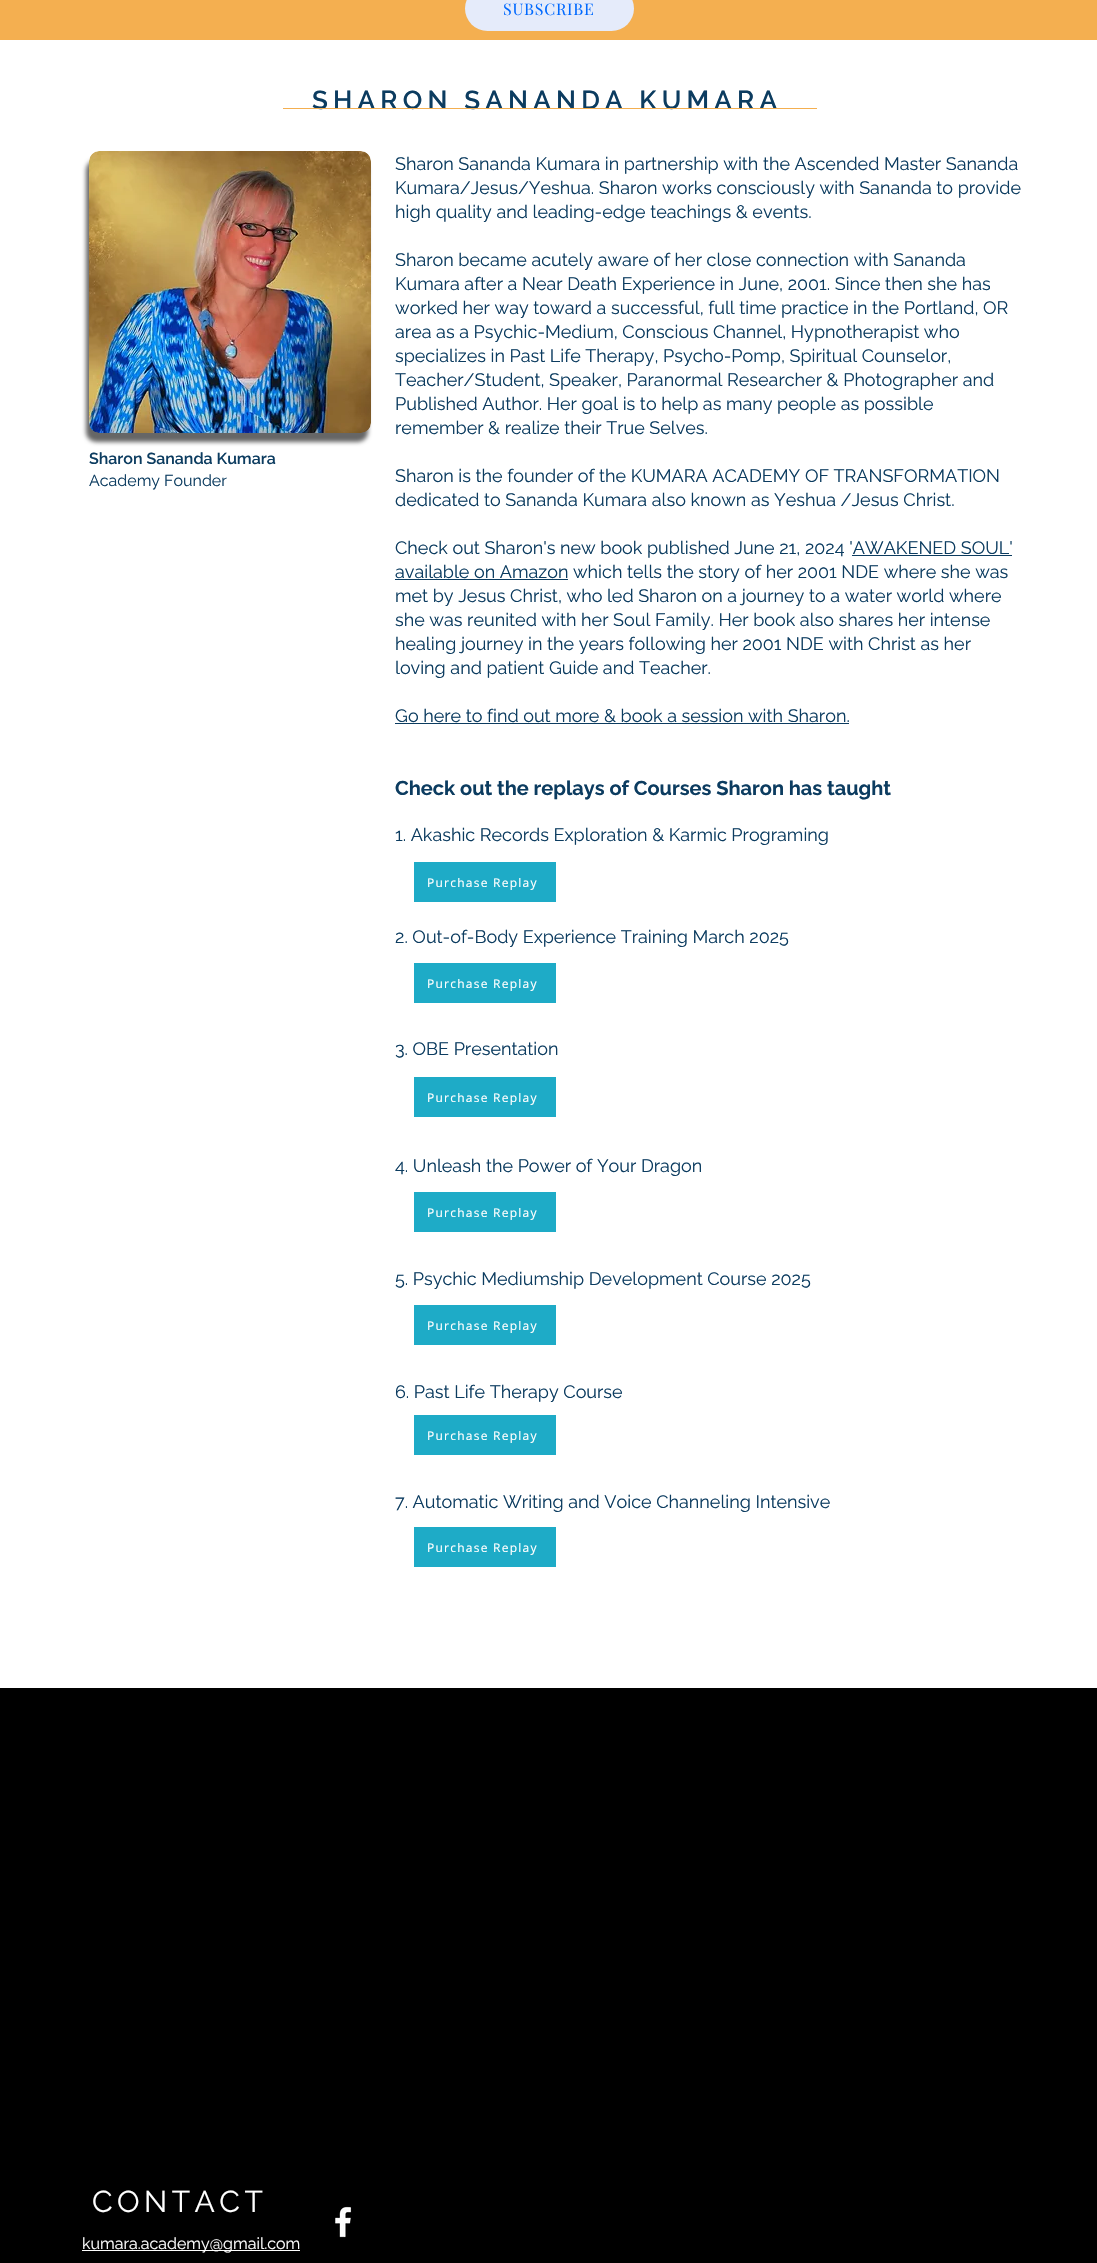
void draw(SkCanvas* canvas) {
	SkPaint fill;
	fill.setAntiAlias(true);
	auto makeFont = [&](const char* family, int weight, float size, bool italic = false) {
		SkFontStyle style(weight, SkFontStyle::kNormal_Width,
			italic ? SkFontStyle::kItalic_Slant : SkFontStyle::kUpright_Slant);
		SkFont result(fontMgr->matchFamilyStyle(family, style), size);
		result.setSubpixel(true);
		return result;
	};
	auto text = [&](const char* s, float x, float y, const SkFont& font) {
		canvas->drawString(s, x, y, font, fill);
	};
	auto spacedText = [&](const char* s, float x, float y, const SkFont& font, const SkPaint& ink, float letter, float word) {
		std::vector<SkGlyphID> glyphs(font.countText(s, strlen(s), SkTextEncoding::kUTF8));
		std::vector<float> xs(glyphs.size());
		font.textToGlyphs(s, strlen(s), SkTextEncoding::kUTF8, glyphs);
		font.getXPos(glyphs, xs, x);
		float extra = 0;
		for (size_t i = 0; i < glyphs.size(); i++) {
			xs[i] += extra;
			extra += letter + word * (glyphs[i] == font.unicharToGlyph(' '));
		}
		canvas->drawTextBlob(SkTextBlob::MakeFromPosHGlyphs(glyphs, xs, y, font), 0, 0, ink);
	};
	auto box = [&](float l, float t, float r, float b) {
		canvas->drawRect(SkRect::MakeLTRB(l, t, r, b), fill);
	};
	auto roundBox = [&](float l, float t, float r, float b, float radius) {
		canvas->drawRoundRect(SkRect::MakeLTRB(l, t, r, b), radius, radius, fill);
	};
	auto picture = [&](const char* path, float l, float t, float r, float b) {
		auto image = SkImages::DeferredFromEncodedData(SkData::MakeFromFileName(path));
		canvas->drawImageRect(image, SkRect::MakeLTRB(l, t, r, b), SkSamplingOptions());
	};
	canvas->clear(0xFFFFFFFF);
	fill.setColor(0xFFF4AF50);
	box(0, 0, 1097, 40);
	fill.setColor(0xFFE5EBFA);
	roundBox(465, -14, 634, 31, 22.5f);
	fill.setColor(0x99000000);
	fill.setMaskFilter(SkMaskFilter::MakeBlur(kNormal_SkBlurStyle, 2));
	canvas->drawRoundRect(SkRect::MakeLTRB(86, 160, 368, 442), 10, 10, fill);
	fill.setMaskFilter(nullptr);
	picture("image0.png", 89, 151, 371, 433);
	fill.setColor(0xFF0C3C60);
	box(852, 555, 1012, 556);
	box(395, 579, 568, 580);
	box(395, 723, 849, 724);
	fill.setColor(0xFF1EABC7);
	box(414, 862, 556, 902);
	box(414, 963, 556, 1003);
	box(414, 1077, 556, 1117);
	box(414, 1192, 556, 1232);
	box(414, 1305, 556, 1345);
	box(414, 1415, 556, 1455);
	box(414, 1527, 556, 1567);
	fill.setColor(0xFF000000);
	box(0, 1688, 1097, 2263);
	picture("image1.png", 335, 2206, 352, 2238);
	fill.setColor(0xFFFFFFFF);
	box(82, 2250, 300, 2251);
	auto font1 = makeFont("Playfair Display", 400, 16);
	fill.setColor(0xFF0069FF);
	spacedText("SUBSCRIBE", 503, 15, font1, fill, 0.75f, 0);
	auto font2 = makeFont("Raleway", 600, 26);
	fill.setColor(0xFF0C3C60);
	spacedText("SHARON SANANDA KUMARA", 312, 109, font2, fill, 5.2f, 0);
	fill.setColor(0xFFF4AF50);
	box(283, 108, 817, 109);
	auto font3 = makeFont("Raleway", 400, 18);
	fill.setColor(0xFF0C3C60);
	text("Sharon Sananda Kumara in partnership with the Ascended Master Sananda", 395, 170, font3);
	text("Kumara/Jesus/Yeshua. Sharon works consciously with Sananda to provide", 395, 194, font3);
	text("high quality and leading-edge teachings & events.", 395, 218, font3);
	text("Sharon became acutely aware of her close connection with Sananda", 395, 266, font3);
	text("Kumara after a Near Death Experience in June, 2001. Since then she has", 395, 290, font3);
	text("worked her way toward a successful, full time practice in the Portland, OR", 395, 314, font3);
	text("area as a Psychic-Medium, Conscious Channel, Hypnotherapist who", 395, 338, font3);
	text("specializes in Past Life Therapy, Psycho-Pomp, Spiritual Counselor,", 395, 362, font3);
	text("Teacher/Student, Speaker, Paranormal Researcher & Photographer and", 395, 386, font3);
	text("Published Author. Her goal is to help as many people as possible", 395, 410, font3);
	text("remember & realize their True Selves.", 395, 434, font3);
	text("Sharon is the founder of the KUMARA ACADEMY OF TRANSFORMATION", 395, 482, font3);
	text("dedicated to Sananda Kumara also known as Yeshua /Jesus Christ.", 395, 506, font3);
	text("Check out Sharon's new book published June 21, 2024 'AWAKENED SOUL'", 395, 554, font3);
	text("available on Amazon which tells the story of her 2001 NDE where she was", 395, 578, font3);
	text("met by Jesus Christ, who led Sharon on a journey to a water world where", 395, 602, font3);
	text("she was reunited with her Soul Family. Her book also shares her intense", 395, 626, font3);
	text("healing journey in the years following her 2001 NDE with Christ as her", 395, 650, font3);
	text("loving and patient Guide and Teacher.", 395, 674, font3);
	text("Go here to find out more & book a session with Sharon.", 395, 722, font3);
	auto font4 = makeFont("Raleway", 600, 16);
	text("Sharon Sananda Kumara", 89, 464, font4);
	auto font5 = makeFont("Raleway", 400, 16);
	text("Academy Founder", 89, 486, font5);
	auto font6 = makeFont("Raleway", 700, 20);
	text("Check out the replays of Courses Sharon has taught", 395, 795, font6);
	auto font7 = makeFont("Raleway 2", 400, 18);
	text("1. Akashic Records Exploration & Karmic Programing", 395, 841, font7);
	auto font8 = makeFont("Open Sans", 400, 12);
	fill.setColor(0xFFFFFFFF);
	spacedText("Purchase Replay", 427, 887, font8, fill, 1.25f, 0);
	fill.setColor(0xFF0C3C60);
	text("2. Out-of-Body Experience Training March 2025", 395, 943, font7);
	fill.setColor(0xFFFFFFFF);
	spacedText("Purchase Replay", 427, 988, font8, fill, 1.25f, 0);
	fill.setColor(0xFF0C3C60);
	text("3. OBE Presentation", 395, 1055, font7);
	fill.setColor(0xFFFFFFFF);
	spacedText("Purchase Replay", 427, 1102, font8, fill, 1.25f, 0);
	fill.setColor(0xFF0C3C60);
	text("4. Unleash the Power of Your Dragon", 395, 1172, font7);
	fill.setColor(0xFFFFFFFF);
	spacedText("Purchase Replay", 427, 1217, font8, fill, 1.25f, 0);
	fill.setColor(0xFF0C3C60);
	text("5. Psychic Mediumship Development Course 2025", 395, 1285, font7);
	fill.setColor(0xFFFFFFFF);
	spacedText("Purchase Replay", 427, 1330, font8, fill, 1.25f, 0);
	fill.setColor(0xFF0C3C60);
	text("6. Past Life Therapy Course", 395, 1398, font7);
	fill.setColor(0xFFFFFFFF);
	spacedText("Purchase Replay", 427, 1440, font8, fill, 1.25f, 0);
	fill.setColor(0xFF0C3C60);
	text("7. Automatic Writing and Voice Channeling Intensive", 395, 1508, font7);
	fill.setColor(0xFFFFFFFF);
	spacedText("Purchase Replay", 427, 1552, font8, fill, 1.25f, 0);
	auto font9 = makeFont("Raleway", 400, 30);
	spacedText("CONTACT", 92, 2212, font9, fill, 4.5f, 0);
	text("kumara.academy@gmail.com", 82, 2249, font5);
}
